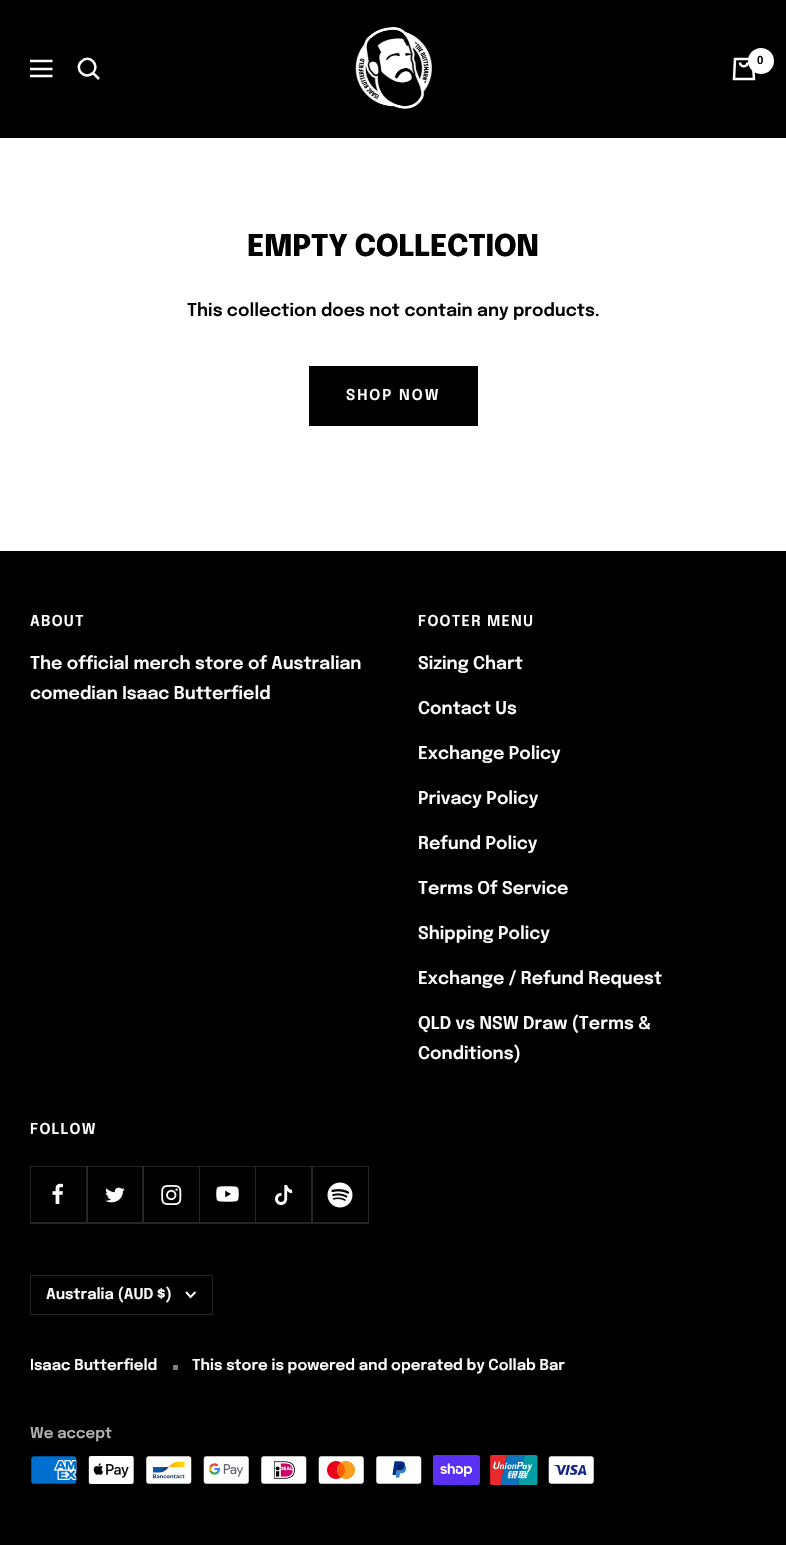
void draw(SkCanvas* canvas) {
	SkPaint fill;
	fill.setAntiAlias(true);
	auto makeFont = [&](const char* family, int weight, float size, bool italic = false) {
		SkFontStyle style(weight, SkFontStyle::kNormal_Width,
			italic ? SkFontStyle::kItalic_Slant : SkFontStyle::kUpright_Slant);
		SkFont result(fontMgr->matchFamilyStyle(family, style), size);
		result.setSubpixel(true);
		return result;
	};
	auto text = [&](const char* s, float x, float y, const SkFont& font) {
		canvas->drawString(s, x, y, font, fill);
	};
	auto spacedText = [&](const char* s, float x, float y, const SkFont& font, const SkPaint& ink, float letter, float word) {
		std::vector<SkGlyphID> glyphs(font.countText(s, strlen(s), SkTextEncoding::kUTF8));
		std::vector<float> xs(glyphs.size());
		font.textToGlyphs(s, strlen(s), SkTextEncoding::kUTF8, glyphs);
		font.getXPos(glyphs, xs, x);
		float extra = 0;
		for (size_t i = 0; i < glyphs.size(); i++) {
			xs[i] += extra;
			extra += letter + word * (glyphs[i] == font.unicharToGlyph(' '));
		}
		canvas->drawTextBlob(SkTextBlob::MakeFromPosHGlyphs(glyphs, xs, y, font), 0, 0, ink);
	};
	auto box = [&](float l, float t, float r, float b) {
		canvas->drawRect(SkRect::MakeLTRB(l, t, r, b), fill);
	};
	auto picture = [&](const char* path, float l, float t, float r, float b) {
		auto image = SkImages::DeferredFromEncodedData(SkData::MakeFromFileName(path));
		canvas->drawImageRect(image, SkRect::MakeLTRB(l, t, r, b), SkSamplingOptions());
	};
	canvas->clear(0xFFFFFFFF);
	fill.setColor(0xFF000000);
	box(0, 0, 786, 138);
	fill.setStyle(SkPaint::kStroke_Style);
	fill.setStrokeWidth(2.5f);
	fill.setColor(0xFFFFFFFF);
	canvas->drawPath(SkPathBuilder().moveTo(30, 61).lineTo(52.5f, 61).moveTo(30, 76).lineTo(52.5f, 76).close().moveTo(30, 69).lineTo(52.5f, 69).close().detach(), fill);
	canvas->drawPath(SkPathBuilder().moveTo(93, 73).cubicTo(100.5f, 65, 89, 53.5f, 81.5f, 61.5f).cubicTo(73.5f, 69, 85, 80.5f, 93, 73).close().moveTo(93, 73).lineTo(99, 79).detach(), fill);
	picture("image0.png", 355, 26, 432, 109);
	canvas->drawPath(SkPathBuilder().moveTo(735, 59).lineTo(752.5f, 59).lineTo(754, 79).lineTo(734, 79).close().moveTo(740, 62.5f).cubicTo(740, 67.5f, 747.5f, 67.5f, 747.5f, 62.5f).detach(), fill);
	fill.setStyle(SkPaint::kFill_Style);
	canvas->drawCircle(761, 61, 13, fill);
	fill.setColor(0xFF000000);
	box(309, 366, 478, 426);
	box(0, 551, 786, 1545);
	fill.setColor(0xFF262626);
	canvas->drawPath(SkPathBuilder().moveTo(31, 1222).lineTo(31, 1224).lineTo(88, 1224).lineTo(88, 1168).lineTo(86, 1168).lineTo(86, 1222).close().detach(), fill);
	box(30, 1223, 31, 1224);
	canvas->drawPath(SkPathBuilder().moveTo(31, 1166).lineTo(86, 1166).lineTo(86, 1222).lineTo(31, 1222).lineTo(31, 1223).lineTo(88, 1223).lineTo(88, 1166).close().detach(), fill);
	box(30, 1166, 86, 1167);
	box(30, 1166, 31, 1223);
	picture("image1.png", 52, 1183, 63, 1204);
	canvas->drawPath(SkPathBuilder().moveTo(88, 1222).lineTo(88, 1224).lineTo(144, 1224).lineTo(144, 1168).lineTo(142, 1168).lineTo(142, 1222).close().detach(), fill);
	canvas->drawPath(SkPathBuilder().moveTo(88, 1166).lineTo(142, 1166).lineTo(142, 1222).lineTo(88, 1222).lineTo(88, 1223).lineTo(144, 1223).lineTo(144, 1166).close().detach(), fill);
	box(86, 1166, 143, 1167);
	picture("image2.png", 105, 1187, 125, 1203);
	canvas->drawPath(SkPathBuilder().moveTo(144, 1222).lineTo(144, 1224).lineTo(200, 1224).lineTo(200, 1168).lineTo(199, 1168).lineTo(199, 1222).close().detach(), fill);
	canvas->drawPath(SkPathBuilder().moveTo(144, 1166).lineTo(199, 1166).lineTo(199, 1222).lineTo(144, 1222).lineTo(144, 1223).lineTo(200, 1223).lineTo(200, 1166).close().detach(), fill);
	box(143, 1166, 199, 1167);
	picture("image3.png", 161, 1185, 182, 1205);
	canvas->drawPath(SkPathBuilder().moveTo(200, 1222).lineTo(200, 1224).lineTo(256, 1224).lineTo(256, 1168).lineTo(255, 1168).lineTo(255, 1222).close().detach(), fill);
	canvas->drawPath(SkPathBuilder().moveTo(200, 1166).lineTo(255, 1166).lineTo(255, 1222).lineTo(200, 1222).lineTo(200, 1223).lineTo(256, 1223).lineTo(256, 1166).close().detach(), fill);
	box(199, 1166, 255, 1167);
	picture("image4.png", 216, 1186, 239, 1202);
	canvas->drawPath(SkPathBuilder().moveTo(256, 1222).lineTo(256, 1224).lineTo(313, 1224).lineTo(313, 1168).lineTo(311, 1168).lineTo(311, 1222).close().detach(), fill);
	canvas->drawPath(SkPathBuilder().moveTo(256, 1166).lineTo(311, 1166).lineTo(311, 1222).lineTo(256, 1222).lineTo(256, 1223).lineTo(313, 1223).lineTo(313, 1166).close().detach(), fill);
	box(255, 1166, 311, 1167);
	picture("image5.png", 275, 1185, 293, 1205);
	canvas->drawPath(SkPathBuilder().moveTo(313, 1222).lineTo(313, 1224).lineTo(369, 1224).lineTo(369, 1168).lineTo(368, 1168).lineTo(368, 1222).close().detach(), fill);
	canvas->drawPath(SkPathBuilder().moveTo(313, 1166).lineTo(368, 1166).lineTo(368, 1222).lineTo(313, 1222).lineTo(313, 1223).lineTo(369, 1223).lineTo(369, 1166).close().detach(), fill);
	box(311, 1166, 368, 1167);
	picture("image6.png", 327, 1182, 353, 1208);
	fill.setStyle(SkPaint::kStroke_Style);
	fill.setStrokeWidth(1);
	canvas->drawRect(SkRect::MakeLTRB(30.5f, 1275.5f, 212.5f, 1314.5f), fill);
	fill.setStrokeWidth(1.9f);
	fill.setColor(0xFFFFFFFF);
	canvas->drawPath(SkPathBuilder().moveTo(186, 1292).lineTo(190.5f, 1297).lineTo(195.5f, 1292).detach(), fill);
	fill.setStyle(SkPaint::kFill_Style);
	fill.setColor(0xFF808080);
	box(173, 1365, 178, 1370);
	picture("image7.png", 31, 1456, 77, 1484);
	picture("image8.png", 88, 1456, 134, 1484);
	picture("image9.png", 146, 1456, 192, 1484);
	picture("image10.png", 203, 1456, 249, 1484);
	picture("image11.png", 261, 1456, 307, 1484);
	picture("image12.png", 318, 1456, 364, 1484);
	picture("image13.png", 376, 1456, 422, 1484);
	picture("image14.png", 433, 1455, 480, 1485);
	picture("image15.png", 490, 1455, 538, 1485);
	picture("image16.png", 548, 1456, 594, 1484);
	auto font1 = makeFont("Epilogue", 600, 11);
	fill.setColor(0xFF000000);
	text("0", 757, 64, font1);
	auto font2 = makeFont("Epilogue", 800, 30);
	spacedText("EMPTY COLLECTION", 247, 256, font2, fill, -0.4f, 0);
	auto font3 = makeFont("Epilogue", 600, 17.5f);
	text("This collection does not contain any products.", 187, 316, font3);
	auto font4 = makeFont("Epilogue", 600, 15);
	fill.setColor(0xFFFFFFFF);
	spacedText("SHOP NOW", 346, 400, font4, fill, 2, 0);
	spacedText("ABOUT", 30, 626, font4, fill, 1.25f, 0);
	text("The official merch store of Australian", 30, 669, font3);
	text("comedian Isaac Butterfield", 30, 699, font3);
	spacedText("FOOTER MENU", 418, 626, font4, fill, 1.25f, 0);
	text("Sizing Chart", 418, 669, font3);
	text("Contact Us", 418, 714, font3);
	text("Exchange Policy", 418, 759, font3);
	text("Privacy Policy", 418, 804, font3);
	text("Refund Policy", 418, 849, font3);
	text("Terms Of Service", 418, 894, font3);
	text("Shipping Policy", 418, 939, font3);
	text("Exchange / Refund Request", 418, 984, font3);
	text("QLD vs NSW Draw (Terms &", 418, 1029, font3);
	text("Conditions)", 418, 1059, font3);
	spacedText("FOLLOW", 30, 1134, font4, fill, 1.25f, 0);
	text("Australia (AUD $)", 46, 1299, font4);
	text("Isaac Butterfield", 30, 1370, font4);
	text("This store is powered and operated by Collab Bar", 192, 1370, font4);
	fill.setColor(0xFFB3B3B3);
	text("We accept", 30, 1438, font4);
}
